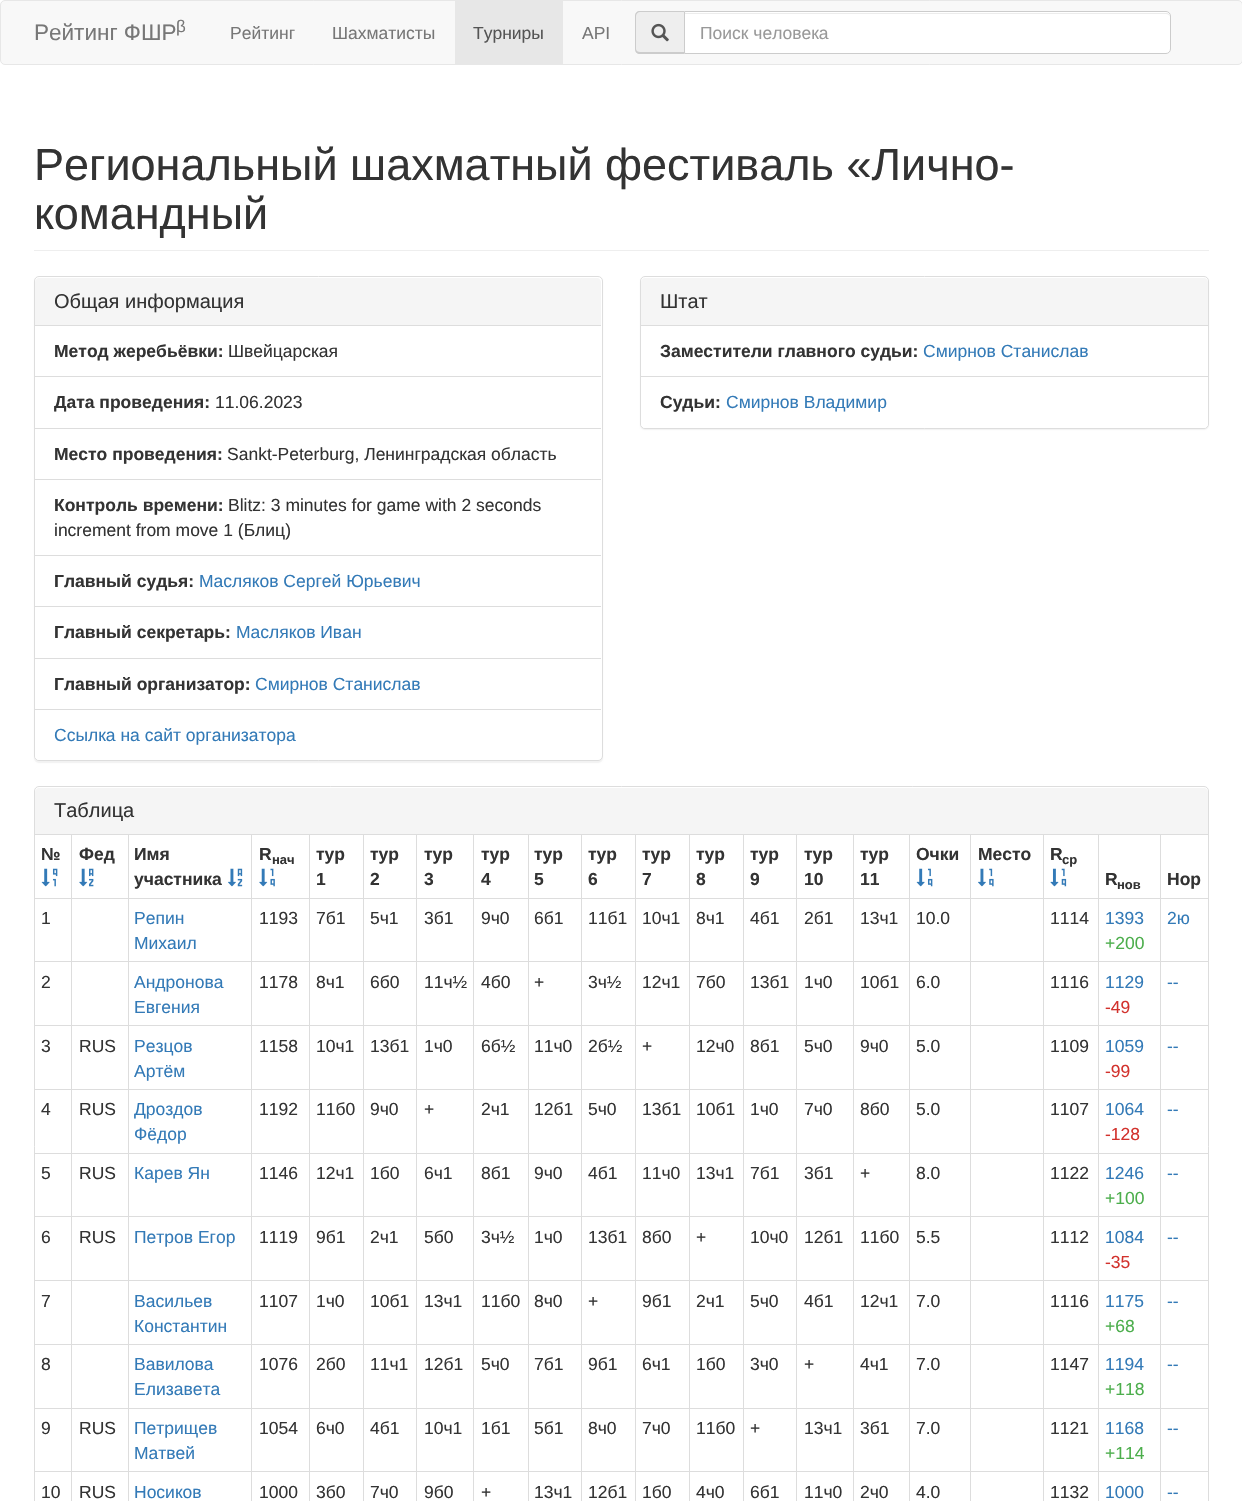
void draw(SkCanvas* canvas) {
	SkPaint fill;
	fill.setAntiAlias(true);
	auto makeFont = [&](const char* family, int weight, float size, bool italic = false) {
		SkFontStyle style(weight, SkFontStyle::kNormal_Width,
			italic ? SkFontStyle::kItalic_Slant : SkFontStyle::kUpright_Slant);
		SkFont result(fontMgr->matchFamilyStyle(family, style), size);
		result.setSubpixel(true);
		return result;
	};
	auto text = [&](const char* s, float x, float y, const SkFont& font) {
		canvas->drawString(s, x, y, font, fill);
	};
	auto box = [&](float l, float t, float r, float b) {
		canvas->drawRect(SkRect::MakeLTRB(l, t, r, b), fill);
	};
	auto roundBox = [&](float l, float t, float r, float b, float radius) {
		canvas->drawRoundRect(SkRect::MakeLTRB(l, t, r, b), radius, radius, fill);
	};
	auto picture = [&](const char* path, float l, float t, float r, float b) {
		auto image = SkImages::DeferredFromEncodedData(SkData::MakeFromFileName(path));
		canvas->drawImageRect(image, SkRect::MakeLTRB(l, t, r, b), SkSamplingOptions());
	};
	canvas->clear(0xFFFFFFFF);
	fill.setColor(0xFFF8F8F8);
	canvas->drawRoundRect(SkRect::MakeLTRB(0.5f, 0.5f, 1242.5f, 64.5f), 4.5f, 4.5f, fill);
	fill.setStyle(SkPaint::kStroke_Style);
	fill.setStrokeWidth(1);
	fill.setColor(0xFFE7E7E7);
	canvas->drawRoundRect(SkRect::MakeLTRB(0.5f, 0.5f, 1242.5f, 64.5f), 4.5f, 4.5f, fill);
	fill.setStyle(SkPaint::kFill_Style);
	box(455, 1, 563, 64);
	fill.setColor(0xFFEEEEEE);
	canvas->drawPath(SkPathBuilder().moveTo(640, 11).lineTo(684, 11).lineTo(684, 54).lineTo(640, 54).cubicTo(637, 54, 635, 52, 635, 49).lineTo(635, 16).cubicTo(635, 13, 637, 11, 640, 11).close().detach(), fill);
	fill.setColor(0xFFCCCCCC);
	canvas->drawPath(SkPathBuilder(SkPathFillType::kEvenOdd).moveTo(640, 11).lineTo(684, 11).lineTo(684, 54).lineTo(640, 54).cubicTo(637, 54, 635, 52, 635, 49).lineTo(635, 16).cubicTo(635, 13, 637, 11, 640, 11).close().moveTo(640, 12).lineTo(684, 12).lineTo(684, 52).lineTo(640, 52).cubicTo(638, 52, 636, 51, 636, 49).lineTo(636, 16).cubicTo(636, 14, 638, 12, 640, 12).close().detach(), fill);
	picture("image0.png", 651, 23, 669, 42);
	fill.setColor(0xFFFFFFFF);
	roundBox(684, 11, 1171, 54, 5);
	fill.setColor(0xFFECECEC);
	canvas->drawPath(SkPathBuilder().moveTo(685, 14).lineTo(1166, 14).cubicTo(1168, 14, 1170, 15, 1170, 18).cubicTo(1170, 15, 1169, 13, 1166, 13).lineTo(685, 13).close().detach(), fill);
	fill.setStyle(SkPaint::kStroke_Style);
	fill.setColor(0xFFCCCCCC);
	canvas->drawPath(SkPathBuilder().moveTo(684.5f, 11.5f).lineTo(1166, 11.5f).cubicTo(1168.5f, 11.5f, 1170.5f, 13.5f, 1170.5f, 16).lineTo(1170.5f, 49).cubicTo(1170.5f, 51.5f, 1168.5f, 53.5f, 1166, 53.5f).lineTo(684.5f, 53.5f).close().detach(), fill);
	fill.setStyle(SkPaint::kFill_Style);
	fill.setColor(0xFFEEEEEE);
	box(34, 250, 1209, 251);
	fill.setColor(0x0D000000);
	fill.setMaskFilter(SkMaskFilter::MakeBlur(kNormal_SkBlurStyle, 0.5f));
	canvas->drawRoundRect(SkRect::MakeLTRB(34, 278, 603, 763), 5, 5, fill);
	fill.setMaskFilter(nullptr);
	fill.setColor(0xFFFFFFFF);
	canvas->drawRoundRect(SkRect::MakeLTRB(34.5f, 276.5f, 602.5f, 760.5f), 4.5f, 4.5f, fill);
	fill.setStyle(SkPaint::kStroke_Style);
	fill.setColor(0xFFDDDDDD);
	canvas->drawRoundRect(SkRect::MakeLTRB(34.5f, 276.5f, 602.5f, 760.5f), 4.5f, 4.5f, fill);
	fill.setStyle(SkPaint::kFill_Style);
	fill.setColor(0xFFF5F5F5);
	canvas->drawPath(SkPathBuilder().moveTo(39, 278).lineTo(597, 278).cubicTo(599, 278, 601, 280, 601, 282).lineTo(601, 326).lineTo(35, 326).lineTo(35, 282).cubicTo(35, 280, 37, 278, 39, 278).close().detach(), fill);
	fill.setColor(0xFFDDDDDD);
	box(35, 325, 601, 326);
	box(35, 376, 601, 377);
	box(35, 428, 601, 429);
	box(35, 479, 601, 480);
	box(35, 555, 601, 556);
	box(35, 606, 601, 607);
	box(35, 658, 601, 659);
	fill.setColor(0xFFFFFFFF);
	canvas->drawPath(SkPathBuilder().moveTo(35, 709).lineTo(601, 709).lineTo(601, 756).cubicTo(601, 758, 599, 760, 597, 760).lineTo(39, 760).cubicTo(37, 760, 35, 758, 35, 756).close().detach(), fill);
	fill.setColor(0xFFDDDDDD);
	box(35, 709, 601, 710);
	fill.setColor(0x0D000000);
	fill.setMaskFilter(SkMaskFilter::MakeBlur(kNormal_SkBlurStyle, 0.5f));
	canvas->drawRoundRect(SkRect::MakeLTRB(640, 278, 1209, 430), 5, 5, fill);
	fill.setMaskFilter(nullptr);
	fill.setColor(0xFFFFFFFF);
	canvas->drawRoundRect(SkRect::MakeLTRB(640.5f, 276.5f, 1208.5f, 428.5f), 4.5f, 4.5f, fill);
	fill.setStyle(SkPaint::kStroke_Style);
	fill.setColor(0xFFDDDDDD);
	canvas->drawRoundRect(SkRect::MakeLTRB(640.5f, 276.5f, 1208.5f, 428.5f), 4.5f, 4.5f, fill);
	fill.setStyle(SkPaint::kFill_Style);
	fill.setColor(0xFFF5F5F5);
	canvas->drawPath(SkPathBuilder().moveTo(645, 278).lineTo(1204, 278).cubicTo(1206, 278, 1208, 280, 1208, 282).lineTo(1208, 326).lineTo(641, 326).lineTo(641, 282).cubicTo(641, 280, 643, 278, 645, 278).close().detach(), fill);
	fill.setColor(0xFFDDDDDD);
	box(641, 325, 1208, 326);
	fill.setColor(0xFFFFFFFF);
	canvas->drawPath(SkPathBuilder().moveTo(641, 376).lineTo(1208, 376).lineTo(1208, 424).cubicTo(1208, 426, 1206, 428, 1204, 428).lineTo(645, 428).cubicTo(643, 428, 641, 426, 641, 424).close().detach(), fill);
	fill.setColor(0xFFDDDDDD);
	box(641, 376, 1208, 377);
	fill.setStyle(SkPaint::kStroke_Style);
	canvas->drawRoundRect(SkRect::MakeLTRB(34.5f, 786.5f, 1208.5f, 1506.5f), 4.5f, 4.5f, fill);
	fill.setStyle(SkPaint::kFill_Style);
	fill.setColor(0xFFF5F5F5);
	canvas->drawPath(SkPathBuilder().moveTo(39, 788).lineTo(1204, 788).cubicTo(1206, 788, 1208, 790, 1208, 792).lineTo(1208, 835).lineTo(35, 835).lineTo(35, 792).cubicTo(35, 790, 37, 788, 39, 788).close().detach(), fill);
	fill.setColor(0xFFDDDDDD);
	box(35, 834, 1208, 835);
	picture("image1.png", 41, 868, 58, 887);
	box(1160, 898, 1209, 899);
	box(1160, 961, 1209, 962);
	box(1160, 1025, 1209, 1026);
	box(1160, 1089, 1209, 1090);
	box(1160, 1153, 1209, 1154);
	box(1160, 1216, 1209, 1217);
	box(1160, 1280, 1209, 1281);
	box(1160, 1344, 1209, 1345);
	box(1160, 1408, 1209, 1409);
	box(1160, 1471, 1209, 1472);
	box(1160, 1471, 1161, 1501);
	box(1098, 1471, 1161, 1472);
	box(1160, 1408, 1161, 1473);
	box(1098, 1408, 1161, 1409);
	box(1160, 1344, 1161, 1409);
	box(1098, 1344, 1161, 1345);
	box(1160, 1280, 1161, 1345);
	box(1098, 1280, 1161, 1281);
	box(1160, 1216, 1161, 1281);
	box(1098, 1216, 1161, 1217);
	box(1160, 1153, 1161, 1218);
	box(1098, 1153, 1161, 1154);
	box(1160, 1089, 1161, 1154);
	box(1098, 1089, 1161, 1090);
	box(1160, 1025, 1161, 1090);
	box(1098, 1025, 1161, 1026);
	box(1160, 961, 1161, 1026);
	box(1098, 961, 1161, 962);
	box(1160, 898, 1161, 963);
	box(1098, 898, 1161, 899);
	box(1098, 1471, 1099, 1501);
	box(1043, 1471, 1099, 1472);
	box(1098, 1408, 1099, 1473);
	box(1043, 1408, 1099, 1409);
	box(1098, 1344, 1099, 1409);
	box(1043, 1344, 1099, 1345);
	box(1098, 1280, 1099, 1345);
	box(1043, 1280, 1099, 1281);
	box(1098, 1216, 1099, 1281);
	box(1043, 1216, 1099, 1217);
	box(1098, 1153, 1099, 1218);
	box(1043, 1153, 1099, 1154);
	box(1098, 1089, 1099, 1154);
	box(1043, 1089, 1099, 1090);
	box(1098, 1025, 1099, 1090);
	box(1043, 1025, 1099, 1026);
	box(1098, 961, 1099, 1026);
	box(1043, 961, 1099, 962);
	box(1098, 898, 1099, 963);
	box(1043, 898, 1099, 899);
	box(1043, 1471, 1044, 1501);
	box(970, 1471, 1044, 1472);
	box(1043, 1408, 1044, 1473);
	box(970, 1408, 1044, 1409);
	box(1043, 1344, 1044, 1409);
	box(970, 1344, 1044, 1345);
	box(1043, 1280, 1044, 1345);
	box(970, 1280, 1044, 1281);
	box(1043, 1216, 1044, 1281);
	box(970, 1216, 1044, 1217);
	box(1043, 1153, 1044, 1218);
	box(970, 1153, 1044, 1154);
	box(1043, 1089, 1044, 1154);
	box(970, 1089, 1044, 1090);
	box(1043, 1025, 1044, 1090);
	box(970, 1025, 1044, 1026);
	box(1043, 961, 1044, 1026);
	box(970, 961, 1044, 962);
	box(1043, 898, 1044, 963);
	box(970, 898, 1044, 899);
	box(970, 1471, 971, 1501);
	box(909, 1471, 971, 1472);
	box(970, 1408, 971, 1473);
	box(909, 1408, 971, 1409);
	box(970, 1344, 971, 1409);
	box(909, 1344, 971, 1345);
	box(970, 1280, 971, 1345);
	box(909, 1280, 971, 1281);
	box(970, 1216, 971, 1281);
	box(909, 1216, 971, 1217);
	box(970, 1153, 971, 1218);
	box(909, 1153, 971, 1154);
	box(970, 1089, 971, 1154);
	box(909, 1089, 971, 1090);
	box(970, 1025, 971, 1090);
	box(909, 1025, 971, 1026);
	box(970, 961, 971, 1026);
	box(909, 961, 971, 962);
	box(970, 898, 971, 963);
	box(909, 898, 971, 899);
	box(909, 1471, 910, 1501);
	box(853, 1471, 910, 1472);
	box(909, 1408, 910, 1473);
	box(853, 1408, 910, 1409);
	box(909, 1344, 910, 1409);
	box(853, 1344, 910, 1345);
	box(909, 1280, 910, 1345);
	box(853, 1280, 910, 1281);
	box(909, 1216, 910, 1281);
	box(853, 1216, 910, 1217);
	box(909, 1153, 910, 1218);
	box(853, 1153, 910, 1154);
	box(909, 1089, 910, 1154);
	box(853, 1089, 910, 1090);
	box(909, 1025, 910, 1090);
	box(853, 1025, 910, 1026);
	box(909, 961, 910, 1026);
	box(853, 961, 910, 962);
	box(909, 898, 910, 963);
	box(853, 898, 910, 899);
	box(853, 1471, 854, 1501);
	box(796, 1471, 854, 1472);
	box(853, 1408, 854, 1473);
	box(796, 1408, 854, 1409);
	box(853, 1344, 854, 1409);
	box(796, 1344, 854, 1345);
	box(853, 1280, 854, 1345);
	box(796, 1280, 854, 1281);
	box(853, 1216, 854, 1281);
	box(796, 1216, 854, 1217);
	box(853, 1153, 854, 1218);
	box(796, 1153, 854, 1154);
	box(853, 1089, 854, 1154);
	box(796, 1089, 854, 1090);
	box(853, 1025, 854, 1090);
	box(796, 1025, 854, 1026);
	box(853, 961, 854, 1026);
	box(796, 961, 854, 962);
	box(853, 898, 854, 963);
	box(796, 898, 854, 899);
	box(796, 1471, 797, 1501);
	box(743, 1471, 798, 1472);
	box(796, 1408, 797, 1473);
	box(743, 1408, 798, 1409);
	box(796, 1344, 797, 1409);
	box(743, 1344, 798, 1345);
	box(796, 1280, 797, 1345);
	box(743, 1280, 798, 1281);
	box(796, 1216, 797, 1281);
	box(743, 1216, 798, 1217);
	box(796, 1153, 797, 1218);
	box(743, 1153, 798, 1154);
	box(796, 1089, 797, 1154);
	box(743, 1089, 798, 1090);
	box(796, 1025, 797, 1090);
	box(743, 1025, 798, 1026);
	box(796, 961, 797, 1026);
	box(743, 961, 798, 962);
	box(796, 898, 797, 963);
	box(743, 898, 798, 899);
	box(743, 1471, 744, 1501);
	box(689, 1471, 744, 1472);
	box(743, 1408, 744, 1473);
	box(689, 1408, 744, 1409);
	box(743, 1344, 744, 1409);
	box(689, 1344, 744, 1345);
	box(743, 1280, 744, 1345);
	box(689, 1280, 744, 1281);
	box(743, 1216, 744, 1281);
	box(689, 1216, 744, 1217);
	box(743, 1153, 744, 1218);
	box(689, 1153, 744, 1154);
	box(743, 1089, 744, 1154);
	box(689, 1089, 744, 1090);
	box(743, 1025, 744, 1090);
	box(689, 1025, 744, 1026);
	box(743, 961, 744, 1026);
	box(689, 961, 744, 962);
	box(743, 898, 744, 963);
	box(689, 898, 744, 899);
	box(689, 1471, 690, 1501);
	box(635, 1471, 690, 1472);
	box(689, 1408, 690, 1473);
	box(635, 1408, 690, 1409);
	box(689, 1344, 690, 1409);
	box(635, 1344, 690, 1345);
	box(689, 1280, 690, 1345);
	box(635, 1280, 690, 1281);
	box(689, 1216, 690, 1281);
	box(635, 1216, 690, 1217);
	box(689, 1153, 690, 1218);
	box(635, 1153, 690, 1154);
	box(689, 1089, 690, 1154);
	box(635, 1089, 690, 1090);
	box(689, 1025, 690, 1090);
	box(635, 1025, 690, 1026);
	box(689, 961, 690, 1026);
	box(635, 961, 690, 962);
	box(689, 898, 690, 963);
	box(635, 898, 690, 899);
	box(635, 1471, 636, 1501);
	box(581, 1471, 636, 1472);
	box(635, 1408, 636, 1473);
	box(581, 1408, 636, 1409);
	box(635, 1344, 636, 1409);
	box(581, 1344, 636, 1345);
	box(635, 1280, 636, 1345);
	box(581, 1280, 636, 1281);
	box(635, 1216, 636, 1281);
	box(581, 1216, 636, 1217);
	box(635, 1153, 636, 1218);
	box(581, 1153, 636, 1154);
	box(635, 1089, 636, 1154);
	box(581, 1089, 636, 1090);
	box(635, 1025, 636, 1090);
	box(581, 1025, 636, 1026);
	box(635, 961, 636, 1026);
	box(581, 961, 636, 962);
	box(635, 898, 636, 963);
	box(581, 898, 636, 899);
	box(581, 1471, 582, 1501);
	box(528, 1471, 583, 1472);
	box(581, 1408, 582, 1473);
	box(528, 1408, 583, 1409);
	box(581, 1344, 582, 1409);
	box(528, 1344, 583, 1345);
	box(581, 1280, 582, 1345);
	box(528, 1280, 583, 1281);
	box(581, 1216, 582, 1281);
	box(528, 1216, 583, 1217);
	box(581, 1153, 582, 1218);
	box(528, 1153, 583, 1154);
	box(581, 1089, 582, 1154);
	box(528, 1089, 583, 1090);
	box(581, 1025, 582, 1090);
	box(528, 1025, 583, 1026);
	box(581, 961, 582, 1026);
	box(528, 961, 583, 962);
	box(581, 898, 582, 963);
	box(528, 898, 583, 899);
	box(528, 1471, 529, 1501);
	box(473, 1471, 529, 1472);
	box(528, 1408, 529, 1473);
	box(473, 1408, 529, 1409);
	box(528, 1344, 529, 1409);
	box(473, 1344, 529, 1345);
	box(528, 1280, 529, 1345);
	box(473, 1280, 529, 1281);
	box(528, 1216, 529, 1281);
	box(473, 1216, 529, 1217);
	box(528, 1153, 529, 1218);
	box(473, 1153, 529, 1154);
	box(528, 1089, 529, 1154);
	box(473, 1089, 529, 1090);
	box(528, 1025, 529, 1090);
	box(473, 1025, 529, 1026);
	box(528, 961, 529, 1026);
	box(473, 961, 529, 962);
	box(528, 898, 529, 963);
	box(473, 898, 529, 899);
	box(473, 1471, 474, 1501);
	box(416, 1471, 474, 1472);
	box(473, 1408, 474, 1473);
	box(416, 1408, 474, 1409);
	box(473, 1344, 474, 1409);
	box(416, 1344, 474, 1345);
	box(473, 1280, 474, 1345);
	box(416, 1280, 474, 1281);
	box(473, 1216, 474, 1281);
	box(416, 1216, 474, 1217);
	box(473, 1153, 474, 1218);
	box(416, 1153, 474, 1154);
	box(473, 1089, 474, 1154);
	box(416, 1089, 474, 1090);
	box(473, 1025, 474, 1090);
	box(416, 1025, 474, 1026);
	box(473, 961, 474, 1026);
	box(416, 961, 474, 962);
	box(473, 898, 474, 963);
	box(416, 898, 474, 899);
	box(416, 1471, 417, 1501);
	box(363, 1471, 418, 1472);
	box(416, 1408, 417, 1473);
	box(363, 1408, 418, 1409);
	box(416, 1344, 417, 1409);
	box(363, 1344, 418, 1345);
	box(416, 1280, 417, 1345);
	box(363, 1280, 418, 1281);
	box(416, 1216, 417, 1281);
	box(363, 1216, 418, 1217);
	box(416, 1153, 417, 1218);
	box(363, 1153, 418, 1154);
	box(416, 1089, 417, 1154);
	box(363, 1089, 418, 1090);
	box(416, 1025, 417, 1090);
	box(363, 1025, 418, 1026);
	box(416, 961, 417, 1026);
	box(363, 961, 418, 962);
	box(416, 898, 417, 963);
	box(363, 898, 418, 899);
	box(363, 1471, 364, 1501);
	box(309, 1471, 364, 1472);
	box(363, 1408, 364, 1473);
	box(309, 1408, 364, 1409);
	box(363, 1344, 364, 1409);
	box(309, 1344, 364, 1345);
	box(363, 1280, 364, 1345);
	box(309, 1280, 364, 1281);
	box(363, 1216, 364, 1281);
	box(309, 1216, 364, 1217);
	box(363, 1153, 364, 1218);
	box(309, 1153, 364, 1154);
	box(363, 1089, 364, 1154);
	box(309, 1089, 364, 1090);
	box(363, 1025, 364, 1090);
	box(309, 1025, 364, 1026);
	box(363, 961, 364, 1026);
	box(309, 961, 364, 962);
	box(363, 898, 364, 963);
	box(309, 898, 364, 899);
	box(309, 1471, 310, 1501);
	box(251, 1471, 310, 1472);
	box(309, 1408, 310, 1473);
	box(251, 1408, 310, 1409);
	box(309, 1344, 310, 1409);
	box(251, 1344, 310, 1345);
	box(309, 1280, 310, 1345);
	box(251, 1280, 310, 1281);
	box(309, 1216, 310, 1281);
	box(251, 1216, 310, 1217);
	box(309, 1153, 310, 1218);
	box(251, 1153, 310, 1154);
	box(309, 1089, 310, 1154);
	box(251, 1089, 310, 1090);
	box(309, 1025, 310, 1090);
	box(251, 1025, 310, 1026);
	box(309, 961, 310, 1026);
	box(251, 961, 310, 962);
	box(309, 898, 310, 963);
	box(251, 898, 310, 899);
	box(251, 1471, 252, 1501);
	box(128, 1471, 253, 1472);
	box(251, 1408, 252, 1473);
	box(128, 1408, 253, 1409);
	box(251, 1344, 252, 1409);
	box(128, 1344, 253, 1345);
	box(251, 1280, 252, 1345);
	box(128, 1280, 253, 1281);
	box(251, 1216, 252, 1281);
	box(128, 1216, 253, 1217);
	box(251, 1153, 252, 1218);
	box(128, 1153, 253, 1154);
	box(251, 1089, 252, 1154);
	box(128, 1089, 253, 1090);
	box(251, 1025, 252, 1090);
	box(128, 1025, 253, 1026);
	box(251, 961, 252, 1026);
	box(128, 961, 253, 962);
	box(251, 898, 252, 963);
	box(128, 898, 253, 899);
	box(128, 1471, 129, 1501);
	box(71, 1471, 129, 1472);
	box(128, 1408, 129, 1473);
	box(71, 1408, 129, 1409);
	box(128, 1344, 129, 1409);
	box(71, 1344, 129, 1345);
	box(128, 1280, 129, 1345);
	box(71, 1280, 129, 1281);
	box(128, 1216, 129, 1281);
	box(71, 1216, 129, 1217);
	box(128, 1153, 129, 1218);
	box(71, 1153, 129, 1154);
	box(128, 1089, 129, 1154);
	box(71, 1089, 129, 1090);
	box(128, 1025, 129, 1090);
	box(71, 1025, 129, 1026);
	box(128, 961, 129, 1026);
	box(71, 961, 129, 962);
	box(128, 898, 129, 963);
	box(71, 898, 129, 899);
	box(71, 1471, 72, 1501);
	box(35, 1471, 73, 1472);
	box(71, 1408, 72, 1473);
	box(35, 1408, 73, 1409);
	box(71, 1344, 72, 1409);
	box(35, 1344, 73, 1345);
	box(71, 1280, 72, 1345);
	box(35, 1280, 73, 1281);
	box(71, 1216, 72, 1281);
	box(35, 1216, 73, 1217);
	box(71, 1153, 72, 1218);
	box(35, 1153, 73, 1154);
	box(71, 1089, 72, 1154);
	box(35, 1089, 73, 1090);
	box(71, 1025, 72, 1090);
	box(35, 1025, 73, 1026);
	box(71, 961, 72, 1026);
	box(35, 961, 73, 962);
	box(71, 898, 72, 963);
	box(35, 898, 73, 899);
	box(71, 835, 72, 899);
	picture("image2.png", 79, 868, 94, 887);
	box(128, 835, 129, 899);
	picture("image3.png", 228, 868, 243, 887);
	box(251, 835, 252, 899);
	picture("image4.png", 259, 868, 275, 887);
	box(309, 835, 310, 899);
	box(363, 835, 364, 899);
	box(416, 835, 417, 899);
	box(473, 835, 474, 899);
	box(528, 835, 529, 899);
	box(581, 835, 582, 899);
	box(635, 835, 636, 899);
	box(689, 835, 690, 899);
	box(743, 835, 744, 899);
	box(796, 835, 797, 899);
	box(853, 835, 854, 899);
	box(909, 835, 910, 899);
	picture("image5.png", 916, 868, 933, 887);
	box(970, 835, 971, 899);
	picture("image6.png", 978, 868, 994, 887);
	box(1043, 835, 1044, 899);
	picture("image7.png", 1050, 868, 1067, 887);
	box(1098, 835, 1099, 899);
	box(1160, 835, 1161, 899);
	auto font1 = makeFont("Liberation Sans", 400, 22.5f);
	fill.setColor(0xFF777777);
	text("Рейтинг ФШР", 34, 40, font1);
	auto font2 = makeFont("Liberation Sans", 400, 17);
	text("β", 176, 32, font2);
	auto font3 = makeFont("Liberation Sans", 400, 17.5f);
	text("Рейтинг", 230, 39, font3);
	text("Шахматисты", 332, 39, font3);
	fill.setColor(0xFF555555);
	text("Турниры", 473, 39, font3);
	fill.setColor(0xFF777777);
	text("API", 582, 39, font3);
	fill.setColor(0xFF999999);
	text("Поиск человека", 700, 39, font3);
	auto font4 = makeFont("Liberation Sans", 400, 45);
	fill.setColor(0xFF333333);
	text("Региональный шахматный фестиваль «Лично-", 34, 180, font4);
	text("командный", 34, 229, font4);
	auto font5 = makeFont("Liberation Sans", 400, 20);
	text("Общая информация", 54, 308, font5);
	auto font6 = makeFont("Liberation Sans", 700, 17.5f);
	text("Метод жеребьёвки:", 54, 357, font6);
	text("Швейцарская", 228, 357, font3);
	text("Дата проведения:", 54, 408, font6);
	text("11.06.2023", 215, 408, font3);
	text("Место проведения:", 54, 460, font6);
	text("Sankt-Peterburg, Ленинградская область", 227, 460, font3);
	text("Контроль времени:", 54, 511, font6);
	text("Blitz: 3 minutes for game with 2 seconds", 228, 511, font3);
	text("increment from move 1 (Блиц)", 54, 536, font3);
	text("Главный судья:", 54, 587, font6);
	fill.setColor(0xFF337AB7);
	text("Масляков Сергей Юрьевич", 199, 587, font3);
	fill.setColor(0xFF333333);
	text("Главный секретарь:", 54, 638, font6);
	fill.setColor(0xFF337AB7);
	text("Масляков Иван", 236, 638, font3);
	fill.setColor(0xFF333333);
	text("Главный организатор:", 54, 690, font6);
	fill.setColor(0xFF337AB7);
	text("Смирнов Станислав", 255, 690, font3);
	text("Ссылка на сайт организатора", 54, 741, font3);
	fill.setColor(0xFF333333);
	text("Штат", 660, 308, font5);
	text("Заместители главного судьи:", 660, 357, font6);
	fill.setColor(0xFF337AB7);
	text("Смирнов Станислав", 923, 357, font3);
	fill.setColor(0xFF333333);
	text("Судьи:", 660, 408, font6);
	fill.setColor(0xFF337AB7);
	text("Смирнов Владимир", 726, 408, font3);
	fill.setColor(0xFF333333);
	text("Таблица", 54, 817, font5);
	text("№", 41, 860, font6);
	text("Фед", 79, 860, font6);
	text("Имя", 134, 860, font6);
	text("участника", 134, 885, font6);
	text("R", 259, 860, font6);
	auto font7 = makeFont("Liberation Sans", 700, 13);
	text("нач", 272, 864, font7);
	text("тур", 316, 860, font6);
	text("1", 316, 885, font6);
	text("тур", 370, 860, font6);
	text("2", 370, 885, font6);
	text("тур", 424, 860, font6);
	text("3", 424, 885, font6);
	text("тур", 481, 860, font6);
	text("4", 481, 885, font6);
	text("тур", 534, 860, font6);
	text("5", 534, 885, font6);
	text("тур", 588, 860, font6);
	text("6", 588, 885, font6);
	text("тур", 642, 860, font6);
	text("7", 642, 885, font6);
	text("тур", 696, 860, font6);
	text("8", 696, 885, font6);
	text("тур", 750, 860, font6);
	text("9", 750, 885, font6);
	text("тур", 804, 860, font6);
	text("10", 804, 885, font6);
	text("тур", 860, 860, font6);
	text("11", 860, 885, font6);
	text("Очки", 916, 860, font6);
	text("Место", 978, 860, font6);
	text("R", 1050, 860, font6);
	text("ср", 1062, 864, font7);
	text("R", 1105, 885, font6);
	text("нов", 1117, 889, font7);
	text("Нор", 1167, 885, font6);
	text("1", 41, 924, font3);
	fill.setColor(0xFF337AB7);
	text("Репин", 134, 924, font3);
	text("Михаил", 134, 949, font3);
	fill.setColor(0xFF333333);
	text("1193", 259, 924, font3);
	text("7б1", 316, 924, font3);
	text("5ч1", 370, 924, font3);
	text("3б1", 424, 924, font3);
	text("9ч0", 481, 924, font3);
	text("6б1", 534, 924, font3);
	text("11б1", 588, 924, font3);
	text("10ч1", 642, 924, font3);
	text("8ч1", 696, 924, font3);
	text("4б1", 750, 924, font3);
	text("2б1", 804, 924, font3);
	text("13ч1", 860, 924, font3);
	text("10.0", 916, 924, font3);
	text("1114", 1050, 924, font3);
	fill.setColor(0xFF337AB7);
	text("1393", 1105, 924, font3);
	fill.setColor(0xFF4CAE4C);
	text("+200", 1105, 949, font3);
	fill.setColor(0xFF337AB7);
	text("2ю", 1167, 924, font3);
	fill.setColor(0xFF333333);
	text("2", 41, 988, font3);
	fill.setColor(0xFF337AB7);
	text("Андронова", 134, 988, font3);
	text("Евгения", 134, 1013, font3);
	fill.setColor(0xFF333333);
	text("1178", 259, 988, font3);
	text("8ч1", 316, 988, font3);
	text("6б0", 370, 988, font3);
	text("11ч½", 424, 988, font3);
	text("4б0", 481, 988, font3);
	text("+", 534, 988, font3);
	text("3ч½", 588, 988, font3);
	text("12ч1", 642, 988, font3);
	text("7б0", 696, 988, font3);
	text("13б1", 750, 988, font3);
	text("1ч0", 804, 988, font3);
	text("10б1", 860, 988, font3);
	text("6.0", 916, 988, font3);
	text("1116", 1050, 988, font3);
	fill.setColor(0xFF337AB7);
	text("1129", 1105, 988, font3);
	fill.setColor(0xFFD2322D);
	text("-49", 1105, 1013, font3);
	fill.setColor(0xFF337AB7);
	text("--", 1167, 988, font3);
	fill.setColor(0xFF333333);
	text("3", 41, 1052, font3);
	text("RUS", 79, 1052, font3);
	fill.setColor(0xFF337AB7);
	text("Резцов", 134, 1052, font3);
	text("Артём", 134, 1077, font3);
	fill.setColor(0xFF333333);
	text("1158", 259, 1052, font3);
	text("10ч1", 316, 1052, font3);
	text("13б1", 370, 1052, font3);
	text("1ч0", 424, 1052, font3);
	text("6б½", 481, 1052, font3);
	text("11ч0", 534, 1052, font3);
	text("2б½", 588, 1052, font3);
	text("+", 642, 1052, font3);
	text("12ч0", 696, 1052, font3);
	text("8б1", 750, 1052, font3);
	text("5ч0", 804, 1052, font3);
	text("9ч0", 860, 1052, font3);
	text("5.0", 916, 1052, font3);
	text("1109", 1050, 1052, font3);
	fill.setColor(0xFF337AB7);
	text("1059", 1105, 1052, font3);
	fill.setColor(0xFFD2322D);
	text("-99", 1105, 1077, font3);
	fill.setColor(0xFF337AB7);
	text("--", 1167, 1052, font3);
	fill.setColor(0xFF333333);
	text("4", 41, 1115, font3);
	text("RUS", 79, 1115, font3);
	fill.setColor(0xFF337AB7);
	text("Дроздов", 134, 1115, font3);
	text("Фёдор", 134, 1140, font3);
	fill.setColor(0xFF333333);
	text("1192", 259, 1115, font3);
	text("11б0", 316, 1115, font3);
	text("9ч0", 370, 1115, font3);
	text("+", 424, 1115, font3);
	text("2ч1", 481, 1115, font3);
	text("12б1", 534, 1115, font3);
	text("5ч0", 588, 1115, font3);
	text("13б1", 642, 1115, font3);
	text("10б1", 696, 1115, font3);
	text("1ч0", 750, 1115, font3);
	text("7ч0", 804, 1115, font3);
	text("8б0", 860, 1115, font3);
	text("5.0", 916, 1115, font3);
	text("1107", 1050, 1115, font3);
	fill.setColor(0xFF337AB7);
	text("1064", 1105, 1115, font3);
	fill.setColor(0xFFD2322D);
	text("-128", 1105, 1140, font3);
	fill.setColor(0xFF337AB7);
	text("--", 1167, 1115, font3);
	fill.setColor(0xFF333333);
	text("5", 41, 1179, font3);
	text("RUS", 79, 1179, font3);
	fill.setColor(0xFF337AB7);
	text("Карев Ян", 134, 1179, font3);
	fill.setColor(0xFF333333);
	text("1146", 259, 1179, font3);
	text("12ч1", 316, 1179, font3);
	text("1б0", 370, 1179, font3);
	text("6ч1", 424, 1179, font3);
	text("8б1", 481, 1179, font3);
	text("9ч0", 534, 1179, font3);
	text("4б1", 588, 1179, font3);
	text("11ч0", 642, 1179, font3);
	text("13ч1", 696, 1179, font3);
	text("7б1", 750, 1179, font3);
	text("3б1", 804, 1179, font3);
	text("+", 860, 1179, font3);
	text("8.0", 916, 1179, font3);
	text("1122", 1050, 1179, font3);
	fill.setColor(0xFF337AB7);
	text("1246", 1105, 1179, font3);
	fill.setColor(0xFF4CAE4C);
	text("+100", 1105, 1204, font3);
	fill.setColor(0xFF337AB7);
	text("--", 1167, 1179, font3);
	fill.setColor(0xFF333333);
	text("6", 41, 1243, font3);
	text("RUS", 79, 1243, font3);
	fill.setColor(0xFF337AB7);
	text("Петров Егор", 134, 1243, font3);
	fill.setColor(0xFF333333);
	text("1119", 259, 1243, font3);
	text("9б1", 316, 1243, font3);
	text("2ч1", 370, 1243, font3);
	text("5б0", 424, 1243, font3);
	text("3ч½", 481, 1243, font3);
	text("1ч0", 534, 1243, font3);
	text("13б1", 588, 1243, font3);
	text("8б0", 642, 1243, font3);
	text("+", 696, 1243, font3);
	text("10ч0", 750, 1243, font3);
	text("12б1", 804, 1243, font3);
	text("11б0", 860, 1243, font3);
	text("5.5", 916, 1243, font3);
	text("1112", 1050, 1243, font3);
	fill.setColor(0xFF337AB7);
	text("1084", 1105, 1243, font3);
	fill.setColor(0xFFD2322D);
	text("-35", 1105, 1268, font3);
	fill.setColor(0xFF337AB7);
	text("--", 1167, 1243, font3);
	fill.setColor(0xFF333333);
	text("7", 41, 1307, font3);
	fill.setColor(0xFF337AB7);
	text("Васильев", 134, 1307, font3);
	text("Константин", 134, 1332, font3);
	fill.setColor(0xFF333333);
	text("1107", 259, 1307, font3);
	text("1ч0", 316, 1307, font3);
	text("10б1", 370, 1307, font3);
	text("13ч1", 424, 1307, font3);
	text("11б0", 481, 1307, font3);
	text("8ч0", 534, 1307, font3);
	text("+", 588, 1307, font3);
	text("9б1", 642, 1307, font3);
	text("2ч1", 696, 1307, font3);
	text("5ч0", 750, 1307, font3);
	text("4б1", 804, 1307, font3);
	text("12ч1", 860, 1307, font3);
	text("7.0", 916, 1307, font3);
	text("1116", 1050, 1307, font3);
	fill.setColor(0xFF337AB7);
	text("1175", 1105, 1307, font3);
	fill.setColor(0xFF4CAE4C);
	text("+68", 1105, 1332, font3);
	fill.setColor(0xFF337AB7);
	text("--", 1167, 1307, font3);
	fill.setColor(0xFF333333);
	text("8", 41, 1370, font3);
	fill.setColor(0xFF337AB7);
	text("Вавилова", 134, 1370, font3);
	text("Елизавета", 134, 1395, font3);
	fill.setColor(0xFF333333);
	text("1076", 259, 1370, font3);
	text("2б0", 316, 1370, font3);
	text("11ч1", 370, 1370, font3);
	text("12б1", 424, 1370, font3);
	text("5ч0", 481, 1370, font3);
	text("7б1", 534, 1370, font3);
	text("9б1", 588, 1370, font3);
	text("6ч1", 642, 1370, font3);
	text("1б0", 696, 1370, font3);
	text("3ч0", 750, 1370, font3);
	text("+", 804, 1370, font3);
	text("4ч1", 860, 1370, font3);
	text("7.0", 916, 1370, font3);
	text("1147", 1050, 1370, font3);
	fill.setColor(0xFF337AB7);
	text("1194", 1105, 1370, font3);
	fill.setColor(0xFF4CAE4C);
	text("+118", 1105, 1395, font3);
	fill.setColor(0xFF337AB7);
	text("--", 1167, 1370, font3);
	fill.setColor(0xFF333333);
	text("9", 41, 1434, font3);
	text("RUS", 79, 1434, font3);
	fill.setColor(0xFF337AB7);
	text("Петрищев", 134, 1434, font3);
	text("Матвей", 134, 1459, font3);
	fill.setColor(0xFF333333);
	text("1054", 259, 1434, font3);
	text("6ч0", 316, 1434, font3);
	text("4б1", 370, 1434, font3);
	text("10ч1", 424, 1434, font3);
	text("1б1", 481, 1434, font3);
	text("5б1", 534, 1434, font3);
	text("8ч0", 588, 1434, font3);
	text("7ч0", 642, 1434, font3);
	text("11б0", 696, 1434, font3);
	text("+", 750, 1434, font3);
	text("13ч1", 804, 1434, font3);
	text("3б1", 860, 1434, font3);
	text("7.0", 916, 1434, font3);
	text("1121", 1050, 1434, font3);
	fill.setColor(0xFF337AB7);
	text("1168", 1105, 1434, font3);
	fill.setColor(0xFF4CAE4C);
	text("+114", 1105, 1459, font3);
	fill.setColor(0xFF337AB7);
	text("--", 1167, 1434, font3);
	fill.setColor(0xFF333333);
	text("10", 41, 1498, font3);
	text("RUS", 79, 1498, font3);
	fill.setColor(0xFF337AB7);
	text("Носиков", 134, 1498, font3);
	fill.setColor(0xFF333333);
	text("1000", 259, 1498, font3);
	text("3б0", 316, 1498, font3);
	text("7ч0", 370, 1498, font3);
	text("9б0", 424, 1498, font3);
	text("+", 481, 1498, font3);
	text("13ч1", 534, 1498, font3);
	text("12б1", 588, 1498, font3);
	text("1б0", 642, 1498, font3);
	text("4ч0", 696, 1498, font3);
	text("6б1", 750, 1498, font3);
	text("11ч0", 804, 1498, font3);
	text("2ч0", 860, 1498, font3);
	text("4.0", 916, 1498, font3);
	text("1132", 1050, 1498, font3);
	fill.setColor(0xFF337AB7);
	text("1000", 1105, 1498, font3);
	text("--", 1167, 1498, font3);
}
